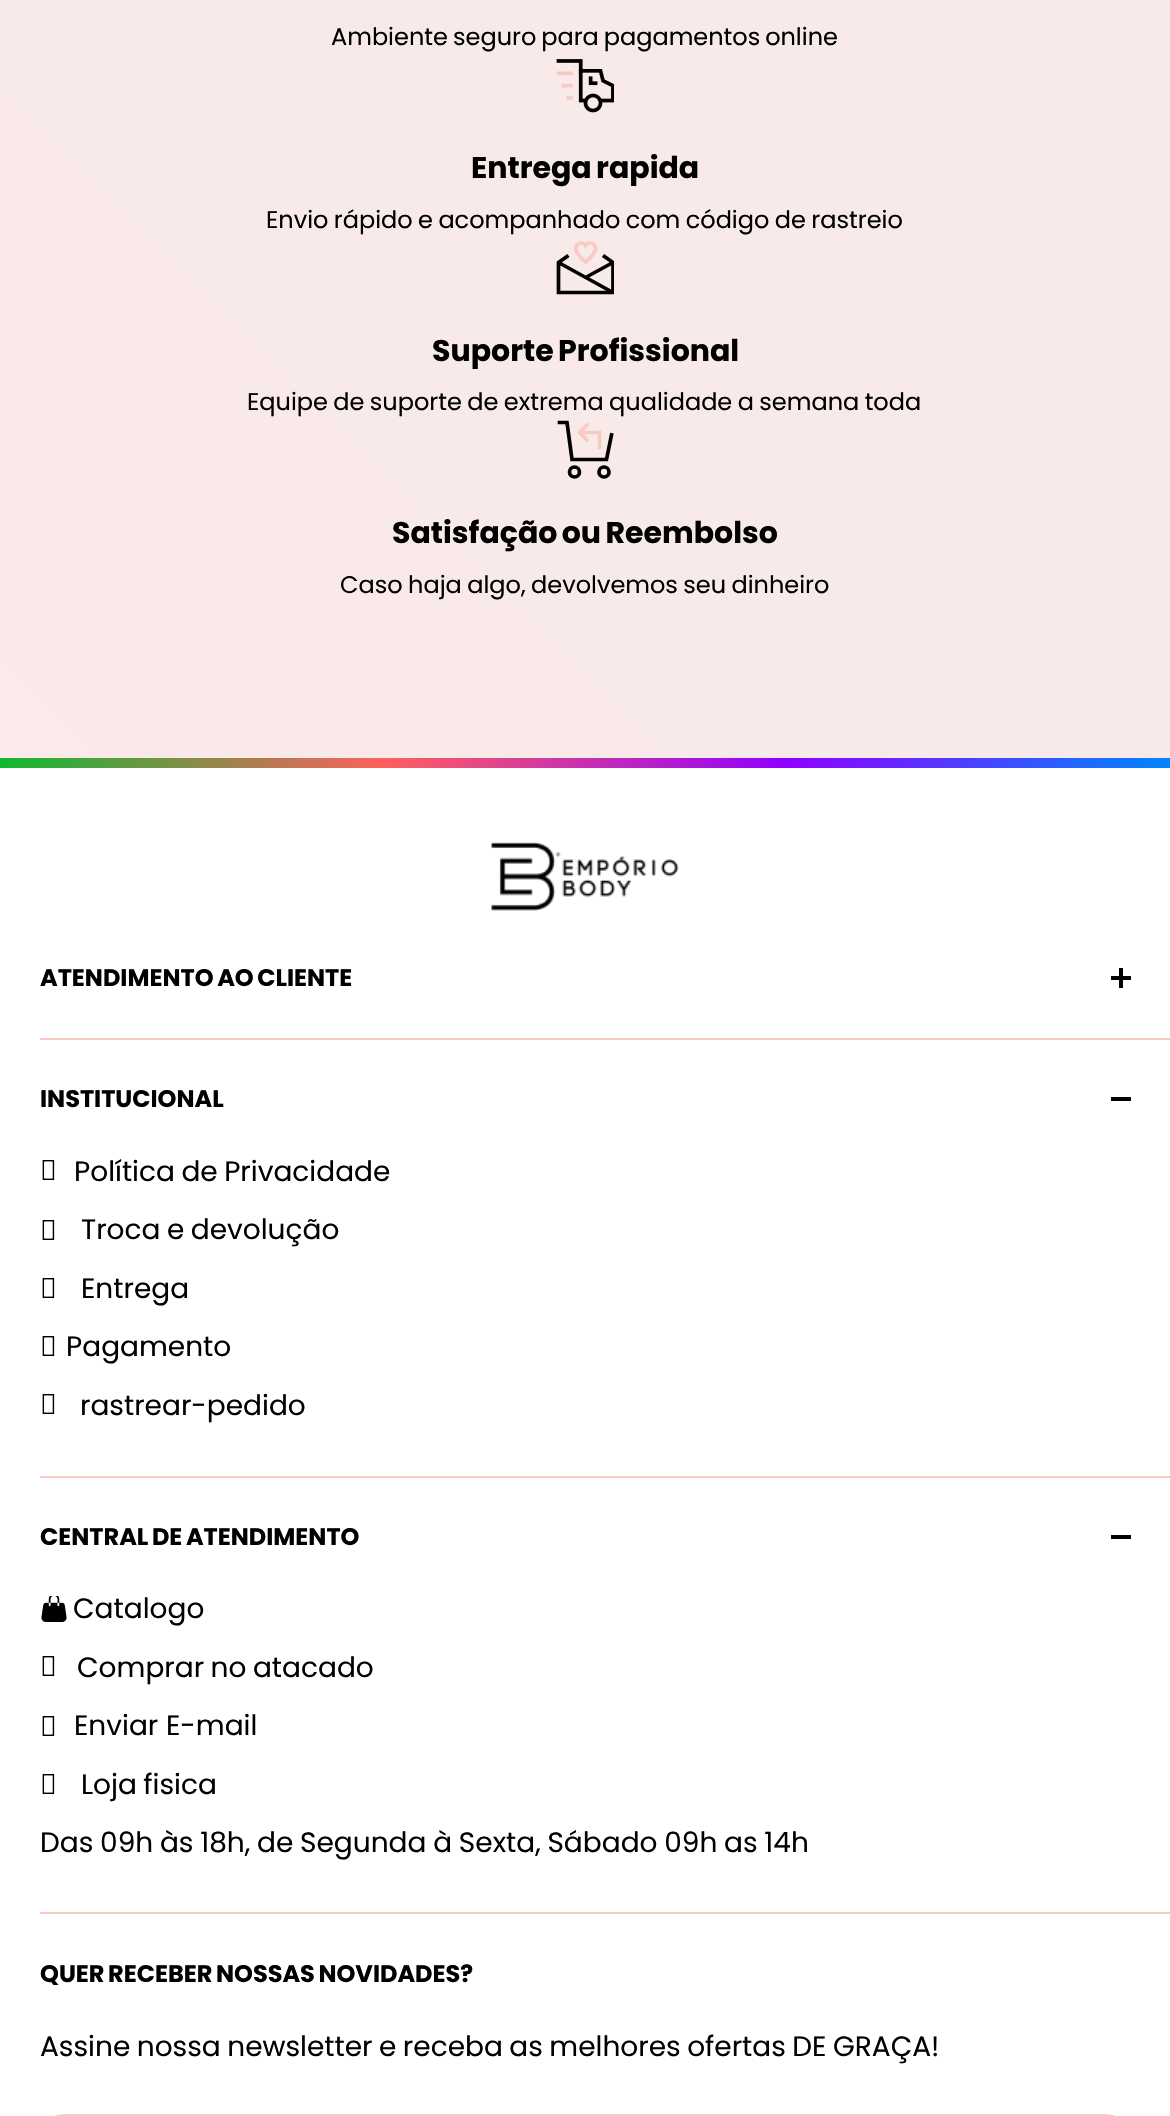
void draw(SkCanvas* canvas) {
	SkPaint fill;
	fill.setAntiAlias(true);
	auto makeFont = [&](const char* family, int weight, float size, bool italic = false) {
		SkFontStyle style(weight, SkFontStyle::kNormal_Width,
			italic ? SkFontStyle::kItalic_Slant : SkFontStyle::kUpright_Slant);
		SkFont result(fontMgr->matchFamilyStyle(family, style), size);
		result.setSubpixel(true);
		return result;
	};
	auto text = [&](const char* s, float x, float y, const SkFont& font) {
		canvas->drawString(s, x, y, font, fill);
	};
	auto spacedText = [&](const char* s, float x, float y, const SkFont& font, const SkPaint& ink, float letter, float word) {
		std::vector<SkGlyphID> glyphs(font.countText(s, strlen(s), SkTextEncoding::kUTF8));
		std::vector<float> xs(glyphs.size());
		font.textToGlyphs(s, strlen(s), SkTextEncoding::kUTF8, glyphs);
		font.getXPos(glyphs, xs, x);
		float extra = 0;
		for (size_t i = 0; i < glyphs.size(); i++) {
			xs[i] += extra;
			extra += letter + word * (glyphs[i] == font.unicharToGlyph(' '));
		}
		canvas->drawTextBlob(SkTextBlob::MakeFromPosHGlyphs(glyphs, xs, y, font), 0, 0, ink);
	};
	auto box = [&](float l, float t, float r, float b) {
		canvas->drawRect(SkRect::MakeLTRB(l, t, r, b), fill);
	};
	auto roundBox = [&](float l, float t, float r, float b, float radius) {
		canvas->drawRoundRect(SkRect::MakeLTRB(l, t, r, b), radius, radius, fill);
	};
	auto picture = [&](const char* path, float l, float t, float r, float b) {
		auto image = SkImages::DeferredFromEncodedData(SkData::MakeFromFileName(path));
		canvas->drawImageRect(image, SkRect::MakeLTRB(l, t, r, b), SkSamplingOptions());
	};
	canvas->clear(0xFFFFFFFF);
	{
		const SkColor colors[] = {0xFFFFEAEA, 0xFFF4EAE9};
		const float stops[] = {0, 1};
		const SkPoint ends[] = {{-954, 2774}, {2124, -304}};
		fill.setShader(SkGradientShader::MakeLinear(ends, colors, stops, 2, SkTileMode::kClamp));
		fill.setAlpha(255);
	}
	box(0, 0, 1170, 758);
	picture("image0.png", 556, 59, 614, 113);
	canvas->save();
	canvas->clipRect(SkRect::MakeLTRB(556, 238, 614, 298));
	fill.setStyle(SkPaint::kStroke_Style);
	fill.setStrokeWidth(3.7f);
	fill.setShader(nullptr);
	fill.setColor(0xFF000000);
	canvas->drawPath(SkPathBuilder().moveTo(568.5f, 255.5f).lineTo(558.5f, 262.5f).lineTo(558.5f, 292.5f).lineTo(613, 292.5f).lineTo(613, 262.5f).lineTo(603, 255.5f).moveTo(558.5f, 262.5f).lineTo(613, 292.5f).moveTo(613, 262.5f).lineTo(585.5f, 277.5f).detach(), fill);
	canvas->restore();
	fill.setStrokeCap(SkPaint::kSquare_Cap);
	fill.setColor(0xFFF9CAC2);
	canvas->drawPath(SkPathBuilder().moveTo(590.5f, 243).cubicTo(588.5f, 243, 586.5f, 244, 585.5f, 245.5f).cubicTo(582.5f, 240, 574, 244, 576, 250.5f).cubicTo(578, 255, 582, 259, 585.5f, 262).cubicTo(585.5f, 262, 595.5f, 254, 595.5f, 248.5f).cubicTo(595.5f, 245.5f, 593.5f, 243, 590.5f, 243).close().detach(), fill);
	fill.setStrokeCap(SkPaint::kButt_Cap);
	canvas->drawPath(SkPathBuilder().moveTo(579.5f, 432.5f).lineTo(599.5f, 432.5f).lineTo(599.5f, 449.5f).detach(), fill);
	fill.setStrokeCap(SkPaint::kSquare_Cap);
	canvas->drawPath(SkPathBuilder().moveTo(587, 440).lineTo(579.5f, 432.5f).lineTo(587, 425).detach(), fill);
	fill.setColor(0xFF000000);
	canvas->drawPath(SkPathBuilder().moveTo(611.5f, 435).lineTo(606.5f, 459.5f).lineTo(572, 459.5f).lineTo(567, 422.5f).lineTo(559.5f, 422.5f).detach(), fill);
	fill.setStrokeCap(SkPaint::kButt_Cap);
	canvas->drawCircle(574.5f, 472, 5, fill);
	canvas->drawCircle(604, 472, 5, fill);
	fill.setStyle(SkPaint::kFill_Style);
	{
		const SkColor colors[] = {0xFF0FB930, 0xFFFF5F5F, 0xFF9100FF, 0xFF0086FF};
		const float stops[] = {0, 0.33f, 0.67f, 1};
		const SkPoint ends[] = {{0, 763}, {1170, 763}};
		fill.setShader(SkGradientShader::MakeLinear(ends, colors, stops, 4, SkTileMode::kClamp));
		fill.setAlpha(255);
	}
	box(0, 758, 1170, 768);
	fill.setShader(nullptr);
	fill.setColor(0xFFF9CAC2);
	box(40, 1038, 1170, 1040);
	picture("image1.png", 491, 842, 679, 911);
	fill.setColor(0xFF000000);
	box(1119, 968, 1123, 988);
	box(1111, 976, 1131, 980);
	fill.setColor(0xFFF9CAC2);
	box(40, 1476, 1170, 1478);
	fill.setColor(0xFF000000);
	box(1111, 1097, 1131, 1101);
	picture("image2.png", 42, 1160, 55, 1180);
	picture("image2.png", 42, 1220, 55, 1240);
	picture("image2.png", 42, 1278, 55, 1298);
	picture("image2.png", 42, 1336, 55, 1356);
	picture("image2.png", 42, 1394, 55, 1414);
	fill.setColor(0xFFF9CAC2);
	box(40, 1912, 1170, 1914);
	fill.setColor(0xFF000000);
	box(1111, 1535, 1131, 1539);
	picture("image3.png", 41, 1596, 67, 1622);
	picture("image2.png", 42, 1656, 55, 1676);
	picture("image2.png", 42, 1716, 55, 1736);
	picture("image2.png", 42, 1774, 55, 1794);
	fill.setColor(0xFFF9CAC2);
	roundBox(40, 2114, 1130, 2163, 47);
	auto font1 = makeFont("Poppins", 400, 24);
	fill.setColor(0xFF000000);
	text("Ambiente", 331, 45, font1);
	spacedText("seguro para pagamentos online", 453, 45, font1, fill, 0, -1.5f);
	auto font2 = makeFont("Poppins", 700, 30);
	spacedText("Entrega rapida", 471, 178, font2, fill, 0, -2);
	spacedText("Envio rápido e acompanhado com código de rastreio", 266, 228, font1, fill, 0, -1);
	spacedText("Suporte Profissional", 432, 361, font2, fill, 0, -2);
	spacedText("Equipe de suporte de extrema qualidade a semana toda", 247, 410, font1, fill, 0, -1);
	spacedText("Satisfação ou Reembolso", 392, 543, font2, fill, 0, -2);
	spacedText("Caso haja algo, devolvemos seu dinheiro", 340, 593, font1, fill, 0, -1);
	auto font3 = makeFont("Poppins", 700, 24);
	spacedText("ATENDIMENTO AO CLIENTE", 40, 986, font3, fill, 0, -1.5f);
	text("INSTITUCIONAL", 40, 1107, font3);
	auto font4 = makeFont("Poppins", 400, 28);
	spacedText("Política de Privacidade", 74, 1181, font4, fill, 0, -1);
	spacedText("Troca e devolução", 81, 1239, font4, fill, 0, -1);
	text("Entrega", 81, 1298, font4);
	text("Pagamento", 66, 1356, font4);
	text("rastrear-pedido", 80, 1415, font4);
	spacedText("CENTRAL DE ATENDIMENTO", 40, 1545, font3, fill, 0, -1.5f);
	text("Catalogo", 73, 1618, font4);
	spacedText("Comprar no atacado", 77, 1677, font4, fill, 0, -1);
	text("Enviar", 74, 1735, font4);
	text("E-mail", 166, 1735, font4);
	spacedText("Loja fisica", 81, 1794, font4, fill, 0, -1);
	spacedText("Das 09h às 18h, de Segunda à Sexta, Sábado 09h as 14h", 40, 1852, font4, fill, 0, -0.75f);
	spacedText("QUER RECEBER NOSSAS NOVIDADES?", 40, 1982, font3, fill, 0, -1.5f);
	spacedText("Assine nossa newsletter e receba as melhores ofertas DE GRAÇA!", 40, 2056, font4, fill, 0, -1);
}
